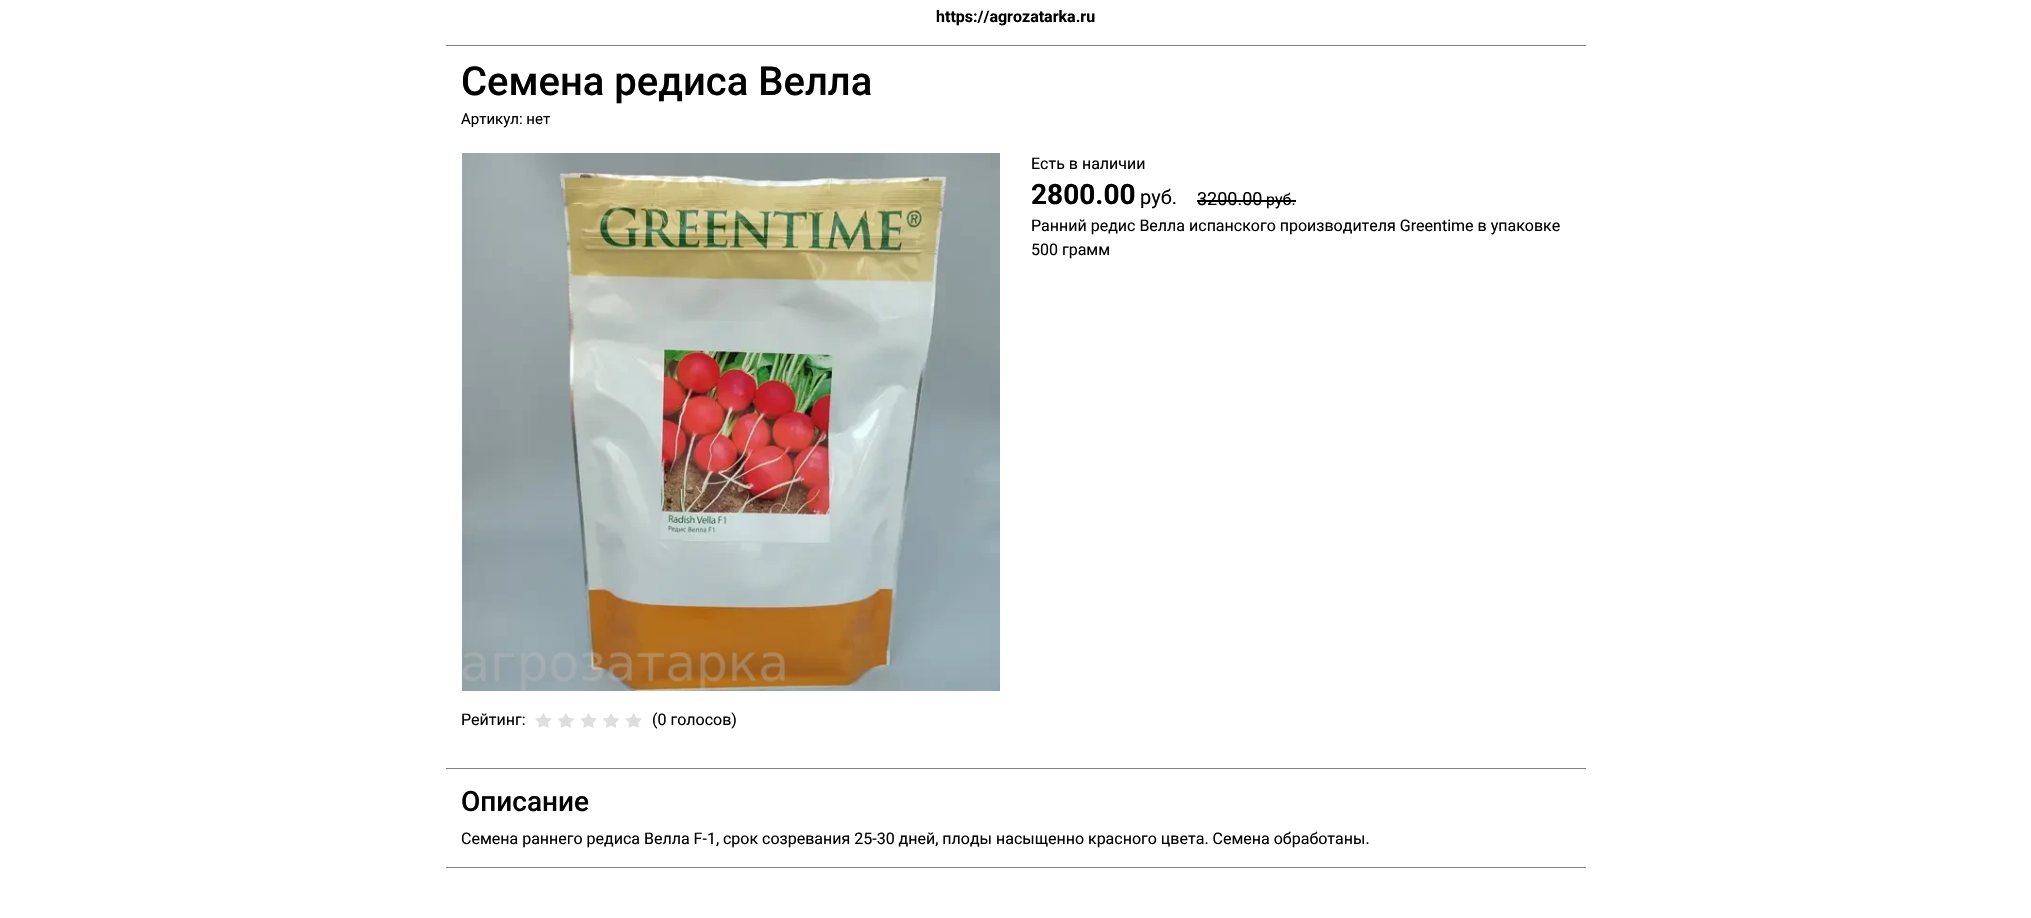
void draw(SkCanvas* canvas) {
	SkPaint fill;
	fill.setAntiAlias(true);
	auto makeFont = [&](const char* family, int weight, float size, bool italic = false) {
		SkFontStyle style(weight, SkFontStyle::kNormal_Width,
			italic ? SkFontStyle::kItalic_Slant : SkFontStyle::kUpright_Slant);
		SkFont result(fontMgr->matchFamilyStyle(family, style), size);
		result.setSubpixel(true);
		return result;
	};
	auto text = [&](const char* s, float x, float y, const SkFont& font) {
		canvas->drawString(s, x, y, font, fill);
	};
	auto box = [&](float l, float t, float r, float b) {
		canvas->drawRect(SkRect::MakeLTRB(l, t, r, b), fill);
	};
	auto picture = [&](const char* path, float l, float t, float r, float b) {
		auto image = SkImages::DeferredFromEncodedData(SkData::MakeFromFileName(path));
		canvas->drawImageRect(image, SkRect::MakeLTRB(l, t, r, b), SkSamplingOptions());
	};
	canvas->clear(0xFFFFFFFF);
	fill.setColor(0xFF808080);
	box(446, 45, 1586, 46);
	fill.setColor(0xFF000000);
	box(1197, 200, 1296, 202);
	picture("image0.png", 462, 153, 1000, 691);
	picture("image1.png", 535, 713, 642, 728);
	fill.setColor(0xFF808080);
	box(446, 768, 1586, 769);
	box(446, 867, 1586, 868);
	auto font1 = makeFont("Roboto", 700, 16);
	fill.setColor(0xFF000000);
	text("https://agrozatarka.ru", 936, 22, font1);
	auto font2 = makeFont("Roboto", 500, 40);
	text("Семена редиса Велла", 461, 95, font2);
	auto font3 = makeFont("Roboto", 400, 15);
	text("Артикул: нет", 461, 124, font3);
	auto font4 = makeFont("Roboto", 400, 16);
	text("Есть в наличии", 1031, 169, font4);
	auto font5 = makeFont("Roboto", 700, 28);
	text("2800.00", 1031, 204, font5);
	auto font6 = makeFont("Roboto", 400, 20);
	text("руб.", 1140, 204, font6);
	auto font7 = makeFont("Roboto", 400, 18);
	text("3200.00", 1197, 205, font7);
	text("руб.", 1266, 205, font4);
	text("Ранний редис Велла испанского производителя Greentime в упаковке", 1031, 231, font4);
	text("500 грамм", 1031, 255, font4);
	text("Рейтинг:", 461, 725, font4);
	text("(0 голосов)", 652, 725, font4);
	auto font8 = makeFont("Roboto", 500, 28);
	text("Описание", 461, 811, font8);
	text("Семена раннего редиса Велла F-1, срок созревания 25-30 дней, плоды насыщенно красного цвета. Семена обработаны.", 461, 844, font4);
}
